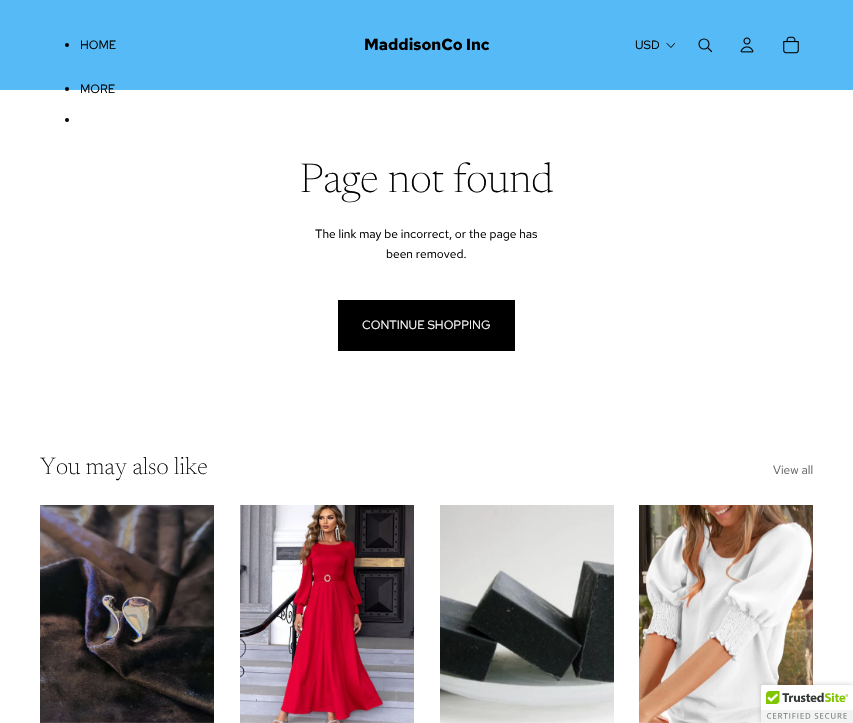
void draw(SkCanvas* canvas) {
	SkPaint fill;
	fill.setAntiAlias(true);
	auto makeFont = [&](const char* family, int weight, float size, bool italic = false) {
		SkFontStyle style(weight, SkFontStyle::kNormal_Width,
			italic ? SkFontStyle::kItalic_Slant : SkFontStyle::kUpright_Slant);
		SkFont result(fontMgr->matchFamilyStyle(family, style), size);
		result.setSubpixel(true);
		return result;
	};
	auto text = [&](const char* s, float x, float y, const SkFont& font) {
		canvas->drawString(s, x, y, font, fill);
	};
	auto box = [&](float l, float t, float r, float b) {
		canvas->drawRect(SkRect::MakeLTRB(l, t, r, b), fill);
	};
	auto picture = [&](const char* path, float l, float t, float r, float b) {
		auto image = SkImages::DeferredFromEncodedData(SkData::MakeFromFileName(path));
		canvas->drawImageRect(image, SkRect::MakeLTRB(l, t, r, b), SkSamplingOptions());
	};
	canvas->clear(0xFFFFFFFF);
	fill.setColor(0xFF55BAF5);
	box(0, 0, 853, 90);
	fill.setColor(0xFF000000);
	canvas->drawCircle(67, 45, 2, fill);
	canvas->drawCircle(67, 89, 2, fill);
	canvas->drawCircle(67, 120, 2, fill);
	fill.setStyle(SkPaint::kStroke_Style);
	fill.setStrokeWidth(1);
	fill.setStrokeCap(SkPaint::kRound_Cap);
	fill.setStrokeJoin(SkPaint::kRound_Join);
	canvas->drawPath(SkPathBuilder().moveTo(674.5f, 43.5f).lineTo(671, 47.5f).lineTo(667, 43.5f).detach(), fill);
	fill.setStrokeWidth(1.1f);
	fill.setStrokeCap(SkPaint::kButt_Cap);
	fill.setStrokeJoin(SkPaint::kMiter_Join);
	canvas->drawCircle(704, 44, 5, fill);
	fill.setStrokeCap(SkPaint::kRound_Cap);
	fill.setStrokeJoin(SkPaint::kRound_Join);
	canvas->drawPath(SkPathBuilder().moveTo(708, 48).lineTo(711.5f, 51.5f).detach(), fill);
	picture("image0.png", 740, 37, 754, 53);
	picture("image1.png", 783, 36, 799, 54);
	fill.setStyle(SkPaint::kFill_Style);
	box(338, 300, 515, 351);
	picture("image2.png", 40, 505, 214, 723);
	picture("image3.png", 240, 505, 414, 723);
	picture("image4.png", 440, 505, 614, 723);
	picture("image5.png", 639, 505, 813, 723);
	fill.setColor(0x33000000);
	fill.setMaskFilter(SkMaskFilter::MakeBlur(kNormal_SkBlurStyle, 2.5f));
	canvas->drawRoundRect(SkRect::MakeLTRB(761, 685, 853, 723), 2, 2, fill);
	fill.setMaskFilter(nullptr);
	fill.setColor(0xFFFFFFFF);
	canvas->drawPath(SkPathBuilder().moveTo(763, 685).lineTo(853, 685).lineTo(853, 723).lineTo(761, 723).lineTo(761, 687).cubicTo(761, 686, 762, 685, 763, 685).close().detach(), fill);
	picture("image6.png", 761, 685, 853, 723);
	auto font1 = makeFont("Red Hat Text", 400, 12);
	fill.setColor(0xFF000000);
	text("HOME", 80, 49, font1);
	text("MORE", 80, 93, font1);
	auto font2 = makeFont("Red Hat Text", 700, 16);
	text("MaddisonCo Inc", 364, 50, font2);
	text("USD", 635, 49, font1);
	auto font3 = makeFont("Newsreader", 200, 41);
	text("Page not found", 300, 192, font3);
	text("The link may be incorrect, or the page has", 315, 238, font1);
	text("been removed.", 386, 258, font1);
	fill.setColor(0xFFFFFFFF);
	text("CONTINUE SHOPPING", 362, 329, font1);
	auto font4 = makeFont("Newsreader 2", 200, 24);
	fill.setColor(0xFF000000);
	text("You may also like", 40, 474, font4);
	fill.setColor(0xFF666666);
	text("View all", 773, 474, font1);
}
